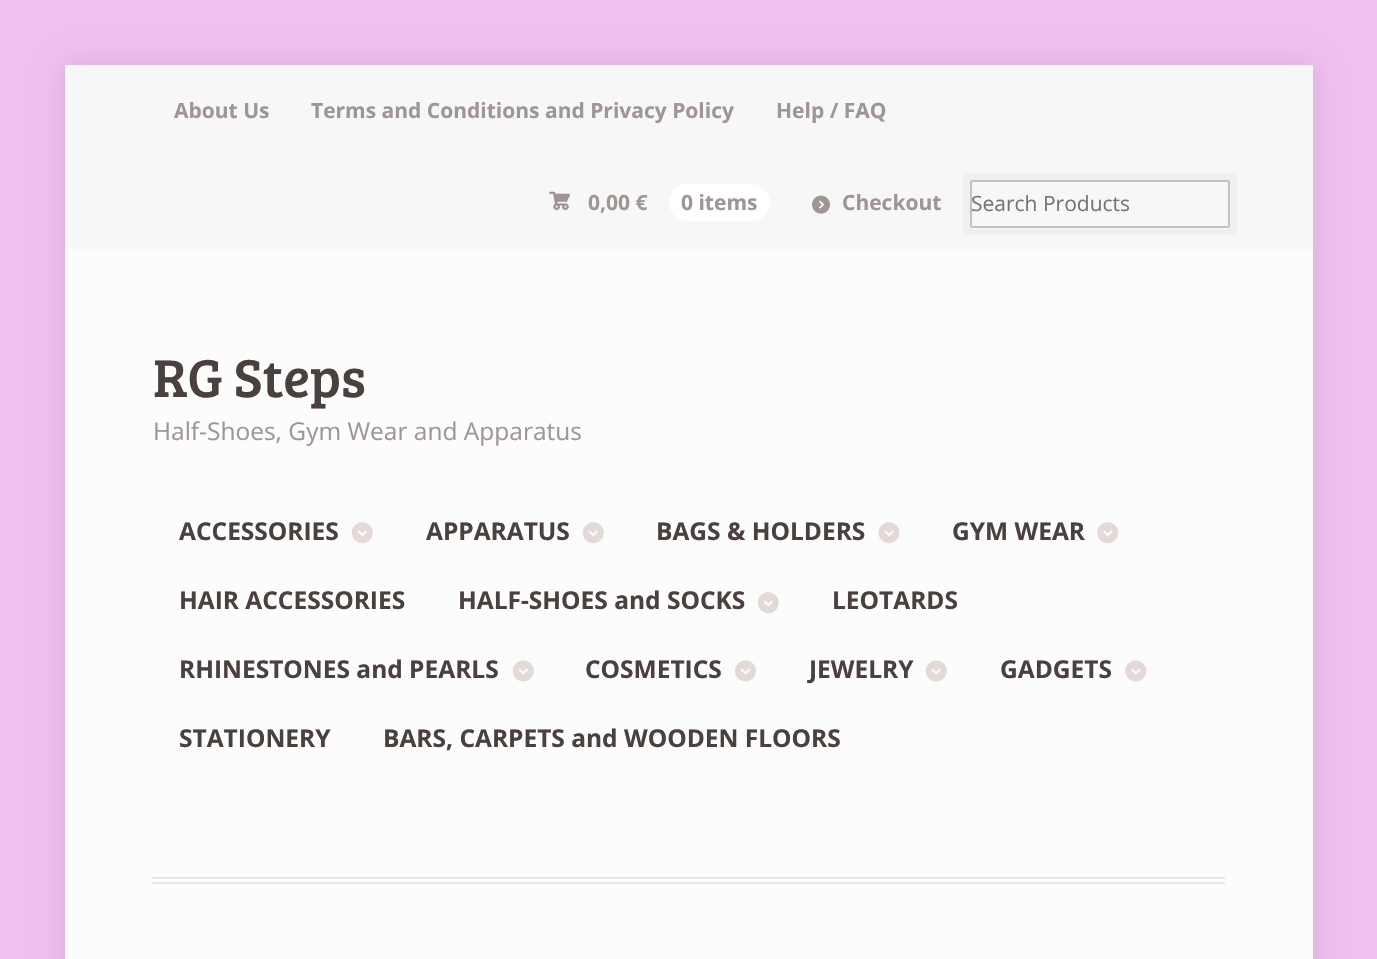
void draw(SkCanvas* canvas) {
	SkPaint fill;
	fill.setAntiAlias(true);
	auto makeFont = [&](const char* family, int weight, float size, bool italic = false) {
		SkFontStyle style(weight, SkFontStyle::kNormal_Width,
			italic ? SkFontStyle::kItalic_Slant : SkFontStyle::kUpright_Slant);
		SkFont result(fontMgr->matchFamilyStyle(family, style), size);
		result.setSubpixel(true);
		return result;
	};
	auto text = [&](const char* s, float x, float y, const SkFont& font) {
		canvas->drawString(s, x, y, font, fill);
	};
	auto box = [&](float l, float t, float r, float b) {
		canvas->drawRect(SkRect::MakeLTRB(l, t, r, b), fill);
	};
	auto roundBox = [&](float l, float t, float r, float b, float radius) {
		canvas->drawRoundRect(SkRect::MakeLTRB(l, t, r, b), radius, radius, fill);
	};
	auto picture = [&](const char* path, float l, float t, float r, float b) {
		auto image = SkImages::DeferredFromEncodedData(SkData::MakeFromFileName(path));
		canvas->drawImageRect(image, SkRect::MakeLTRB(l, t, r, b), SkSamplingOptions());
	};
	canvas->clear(0xFFF0C0F0);
	fill.setColor(0x1A000000);
	fill.setMaskFilter(SkMaskFilter::MakeBlur(kNormal_SkBlurStyle, 12));
	canvas->drawRect(SkRect::MakeLTRB(65, 65, 1313, 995), fill);
	fill.setMaskFilter(nullptr);
	fill.setColor(0xFFFCFCFC);
	box(65, 249, 1313, 959);
	fill.setColor(0xFFF7F7F7);
	box(65, 65, 1313, 249);
	fill.setColor(0xFFFFFFFF);
	roundBox(669, 184, 770, 221, 18.5f);
	picture("image0.png", 812, 195, 830, 214);
	canvas->drawPath(SkPathBuilder().moveTo(970, 226).cubicTo(970, 228, 971, 229, 972, 229).lineTo(1228, 229).cubicTo(1229, 229, 1230, 228, 1230, 226).cubicTo(1230, 227, 1229, 228, 1228, 228).lineTo(972, 228).cubicTo(971, 228, 970, 227, 970, 226).close().detach(), fill);
	fill.setStyle(SkPaint::kStroke_Style);
	fill.setStrokeWidth(7);
	fill.setColor(0x08000000);
	canvas->drawRect(SkRect::MakeLTRB(966.5f, 176.5f, 1233.5f, 231.5f), fill);
	fill.setStrokeWidth(2);
	fill.setColor(0xFFC4C0BF);
	canvas->drawRoundRect(SkRect::MakeLTRB(971, 181, 1229, 227), 1.5f, 1.5f, fill);
	fill.setStyle(SkPaint::kFill_Style);
	fill.setColor(0xFFE8E4E3);
	box(152, 877, 1225, 879);
	box(152, 882, 1225, 884);
	picture("image1.png", 351, 522, 373, 544);
	picture("image1.png", 582, 522, 604, 544);
	picture("image2.png", 878, 522, 900, 544);
	picture("image3.png", 1097, 522, 1119, 544);
	picture("image1.png", 757, 592, 779, 614);
	picture("image4.png", 512, 660, 534, 682);
	picture("image5.png", 735, 660, 756, 682);
	picture("image4.png", 925, 660, 947, 682);
	picture("image6.png", 1125, 660, 1147, 682);
	auto font1 = makeFont("Open Sans", 700, 21);
	fill.setColor(0xFF9F9693);
	text("About Us", 174, 118, font1);
	text("Terms and Conditions and Privacy Policy", 311, 118, font1);
	text("Help / FAQ", 776, 118, font1);
	auto font2 = makeFont("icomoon", 400, 21);
	text("£", 549, 210, font2);
	text("0,00 €", 588, 210, font1);
	text("0 items", 681, 210, font1);
	text("Checkout", 842, 210, font1);
	auto font3 = makeFont("Open Sans", 400, 21);
	fill.setColor(0xFF757575);
	text("Search Products", 971, 211, font3);
	auto font4 = makeFont("Bree Serif", 400, 55);
	fill.setColor(0xFF4A413E);
	text("RG Steps", 153, 397, font4);
	auto font5 = makeFont("Open Sans", 400, 24.5f);
	fill.setColor(0xFF9F9693);
	text("Half-Shoes, Gym Wear and Apparatus", 153, 440, font5);
	auto font6 = makeFont("Open Sans", 700, 24.5f);
	fill.setColor(0xFF4A413E);
	text("ACCESSORIES", 179, 540, font6);
	text("APPARATUS", 426, 540, font6);
	text("BAGS & HOLDERS", 656, 540, font6);
	text("GYM WEAR", 952, 540, font6);
	text("HAIR ACCESSORIES", 179, 609, font6);
	text("HALF-SHOES and SOCKS", 458, 609, font6);
	text("LEOTARDS", 832, 609, font6);
	text("RHINESTONES and PEARLS", 179, 678, font6);
	text("COSMETICS", 585, 678, font6);
	text("JEWELRY", 809, 678, font6);
	text("GADGETS", 1000, 678, font6);
	text("STATIONERY", 179, 747, font6);
	text("BARS, CARPETS and WOODEN FLOORS", 383, 747, font6);
}
